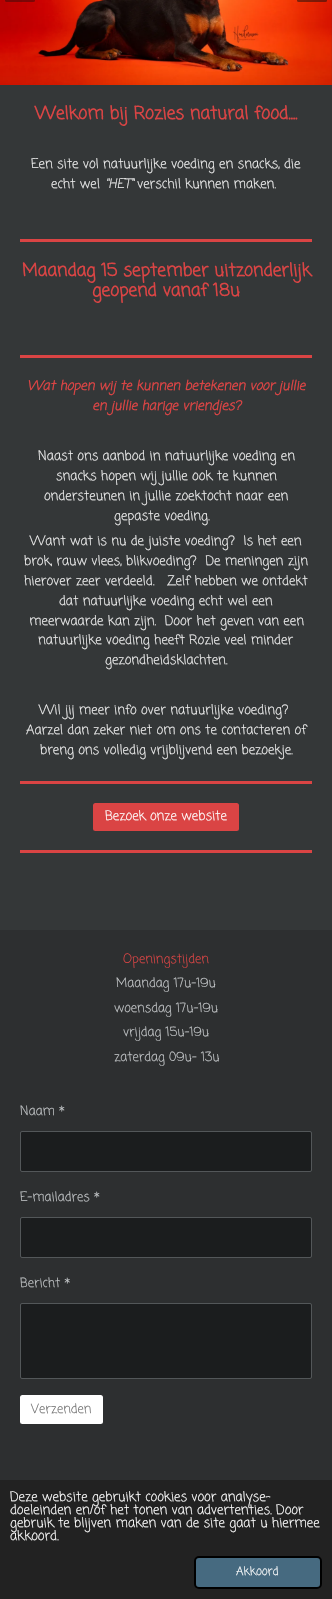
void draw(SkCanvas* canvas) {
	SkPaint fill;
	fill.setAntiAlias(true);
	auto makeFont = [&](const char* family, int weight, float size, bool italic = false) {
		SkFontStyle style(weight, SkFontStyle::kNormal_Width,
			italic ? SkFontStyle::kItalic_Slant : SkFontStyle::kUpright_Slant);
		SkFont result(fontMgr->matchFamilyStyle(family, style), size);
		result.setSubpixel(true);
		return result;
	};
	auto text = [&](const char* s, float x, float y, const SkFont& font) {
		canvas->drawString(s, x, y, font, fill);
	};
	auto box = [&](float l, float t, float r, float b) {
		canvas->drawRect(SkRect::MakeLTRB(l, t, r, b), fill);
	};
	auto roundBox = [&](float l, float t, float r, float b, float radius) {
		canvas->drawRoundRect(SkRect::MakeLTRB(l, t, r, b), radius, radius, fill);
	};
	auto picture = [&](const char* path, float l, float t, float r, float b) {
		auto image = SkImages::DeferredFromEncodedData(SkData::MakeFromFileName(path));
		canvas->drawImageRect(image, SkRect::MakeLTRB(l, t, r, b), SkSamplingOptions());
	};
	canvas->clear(0xFF343738);
	picture("image0.png", 0, 0, 332, 85);
	fill.setColor(0x660F0F0F);
	roundBox(5, -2, 35, 2, 1.5f);
	fill.setColor(0x800F0F0F);
	roundBox(297, -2, 327, 2, 1.5f);
	fill.setColor(0xFFDA4444);
	box(20, 239, 312, 242);
	box(20, 355, 312, 358);
	box(20, 781, 312, 784);
	roundBox(93, 803, 239, 831, 2.5f);
	box(20, 850, 312, 853);
	fill.setColor(0xFF2D2F30);
	box(0, 930, 332, 1480);
	fill.setColor(0xFF1B1D1E);
	canvas->drawRoundRect(SkRect::MakeLTRB(20.5f, 1131.5f, 311.5f, 1171.5f), 1.5f, 1.5f, fill);
	fill.setStyle(SkPaint::kStroke_Style);
	fill.setStrokeWidth(1);
	fill.setColor(0xFF535759);
	canvas->drawRoundRect(SkRect::MakeLTRB(20.5f, 1131.5f, 311.5f, 1171.5f), 1.5f, 1.5f, fill);
	fill.setStyle(SkPaint::kFill_Style);
	fill.setColor(0xFF1B1D1E);
	canvas->drawRoundRect(SkRect::MakeLTRB(20.5f, 1217.5f, 311.5f, 1257.5f), 1.5f, 1.5f, fill);
	fill.setStyle(SkPaint::kStroke_Style);
	fill.setColor(0xFF535759);
	canvas->drawRoundRect(SkRect::MakeLTRB(20.5f, 1217.5f, 311.5f, 1257.5f), 1.5f, 1.5f, fill);
	fill.setStyle(SkPaint::kFill_Style);
	fill.setColor(0xFF1B1D1E);
	canvas->drawRoundRect(SkRect::MakeLTRB(20.5f, 1303.5f, 311.5f, 1378.5f), 1.5f, 1.5f, fill);
	fill.setStyle(SkPaint::kStroke_Style);
	fill.setColor(0xFF535759);
	canvas->drawRoundRect(SkRect::MakeLTRB(20.5f, 1303.5f, 311.5f, 1378.5f), 1.5f, 1.5f, fill);
	fill.setStyle(SkPaint::kFill_Style);
	fill.setColor(0xFFFFFFFF);
	roundBox(20, 1395, 103, 1424, 2.5f);
	fill.setColor(0xFF222222);
	box(0, 1480, 332, 1599);
	fill.setColor(0xFF466A80);
	canvas->drawRoundRect(SkRect::MakeLTRB(195, 1557, 321, 1588), 4, 4, fill);
	fill.setStyle(SkPaint::kStroke_Style);
	fill.setStrokeWidth(2);
	fill.setColor(0xFF000000);
	canvas->drawRoundRect(SkRect::MakeLTRB(195, 1557, 321, 1588), 4, 4, fill);
	auto font1 = makeFont("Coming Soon", 700, 17.5f);
	fill.setStyle(SkPaint::kFill_Style);
	fill.setColor(0xFFDA4444);
	text("Welkom bij Rozies natural food....", 35, 119, font1);
	auto font2 = makeFont("Coming Soon", 400, 13);
	fill.setColor(0xFFEEEEEE);
	text("Een site vol natuurlijke voeding en snacks, die", 31, 168, font2);
	text("echt wel", 51, 188, font2);
	auto font3 = makeFont("Coming Soon", 400, 13, true);
	text("\"HET\"", 105, 188, font3);
	text("verschil kunnen maken.", 137, 188, font2);
	fill.setColor(0xFFDA4444);
	text("Maandag 15 september uitzonderlijk", 22, 276, font1);
	text("geopend vanaf 18u", 92, 296, font1);
	auto font4 = makeFont("Coming Soon", 700, 13, true);
	text("Wat hopen wij te kunnen betekenen voor jullie", 27, 390, font4);
	text("en jullie harige vriendjes?", 92, 410, font4);
	fill.setColor(0xFFEEEEEE);
	text("Naast ons aanbod in natuurlijke voeding en", 38, 460, font2);
	text("snacks hopen wij jullie ook te kunnen", 56, 480, font2);
	text("ondersteunen in jullie zoektocht naar een", 44, 500, font2);
	text("gepaste voeding.", 114, 520, font2);
	text("Want wat is nu de juiste voeding?  Is het een", 30, 545, font2);
	text("brok, rauw vlees, blikvoeding?  De meningen zijn", 24, 565, font2);
	text("hierover zeer verdeeld.   Zelf hebben we ontdekt", 24, 585, font2);
	text("dat natuurlijke voeding echt wel een", 59, 605, font2);
	text("meerwaarde kan zijn.  Door het geven van een", 29, 625, font2);
	text("natuurlijke voeding heeft Rozie veel minder", 38, 644, font2);
	text("gezondheidsklachten.", 105, 664, font2);
	text("Wil jij meer info over natuurlijke voeding?", 39, 714, font2);
	text("Aarzel dan zeker niet om ons te contacteren of", 26, 734, font2);
	text("breng ons volledig vrijblijvend een bezoekje.", 40, 754, font2);
	fill.setColor(0xFFFFFFFF);
	text("Bezoek onze website", 105, 820, font2);
	auto font5 = makeFont("Coming Soon", 400, 12.75f);
	fill.setColor(0xFFDA4444);
	text("Openingstijden", 123, 963, font5);
	fill.setColor(0xFFC0C3C5);
	text("Maandag 17u-19u", 116, 987, font5);
	text("woensdag 17u-19u", 114, 1012, font5);
	text("vrijdag 15u-19u", 123, 1036, font5);
	text("zaterdag 09u- 13u", 114, 1061, font5);
	text("Naam *", 20, 1115, font5);
	text("E-mailadres *", 20, 1201, font5);
	text("Bericht *", 20, 1287, font5);
	fill.setColor(0xFF737373);
	text("Verzenden", 31, 1413, font5);
	fill.setColor(0xFFFFFFFF);
	text("Deze website gebruikt cookies voor analyse-", 10, 1501, font2);
	text("doeleinden en/of het tonen van advertenties. Door", 10, 1514, font2);
	text("gebruik te blijven maken van de site gaat u hiermee", 10, 1527, font2);
	text("akkoord.", 10, 1540, font2);
	auto font6 = makeFont("Coming Soon", 400, 11.5f);
	text("Akkoord", 236, 1575, font6);
}
